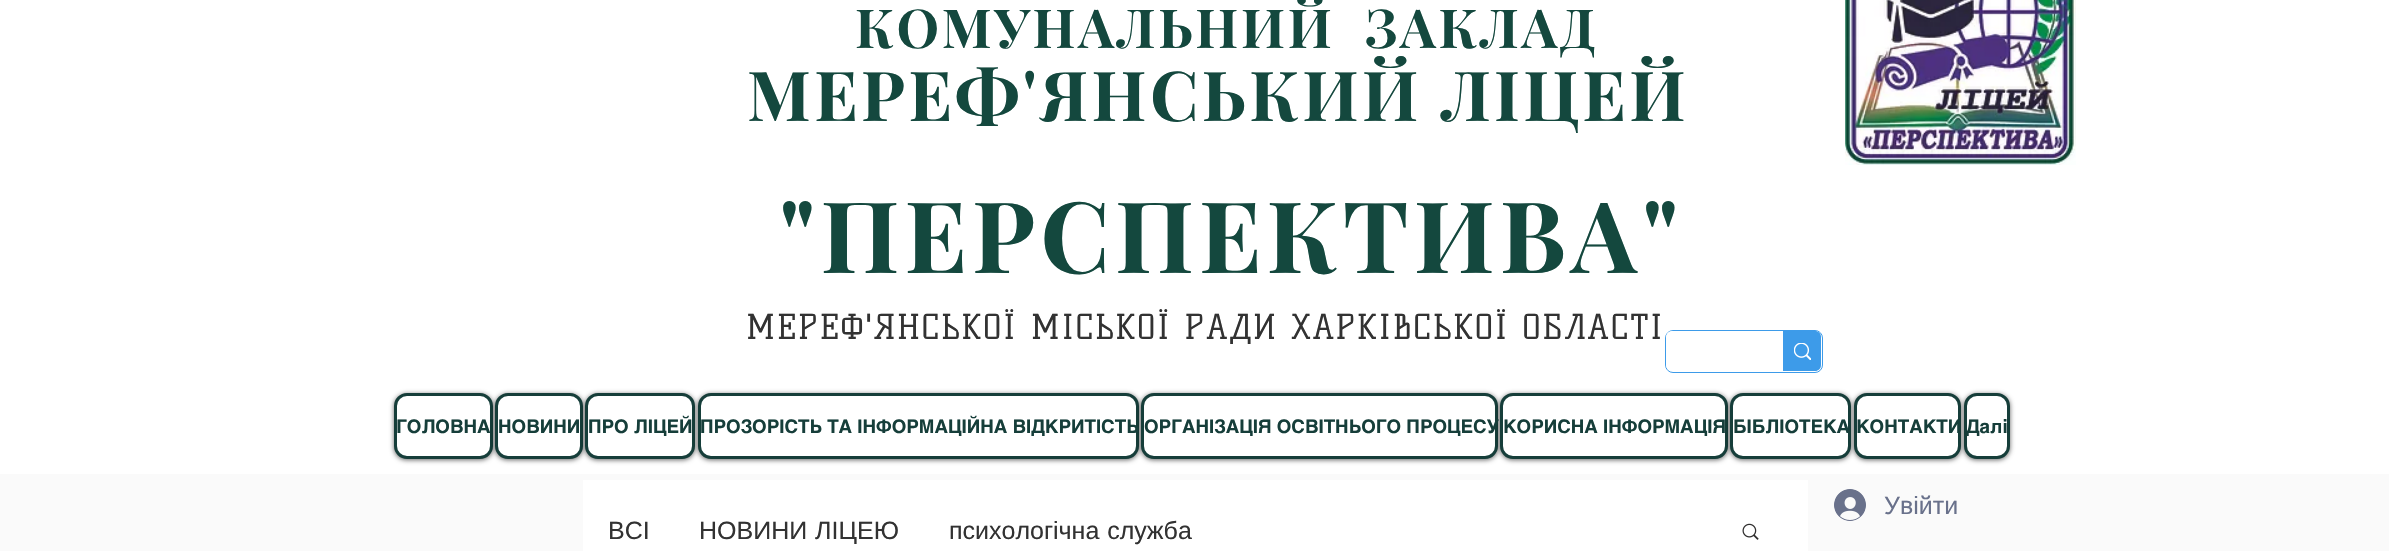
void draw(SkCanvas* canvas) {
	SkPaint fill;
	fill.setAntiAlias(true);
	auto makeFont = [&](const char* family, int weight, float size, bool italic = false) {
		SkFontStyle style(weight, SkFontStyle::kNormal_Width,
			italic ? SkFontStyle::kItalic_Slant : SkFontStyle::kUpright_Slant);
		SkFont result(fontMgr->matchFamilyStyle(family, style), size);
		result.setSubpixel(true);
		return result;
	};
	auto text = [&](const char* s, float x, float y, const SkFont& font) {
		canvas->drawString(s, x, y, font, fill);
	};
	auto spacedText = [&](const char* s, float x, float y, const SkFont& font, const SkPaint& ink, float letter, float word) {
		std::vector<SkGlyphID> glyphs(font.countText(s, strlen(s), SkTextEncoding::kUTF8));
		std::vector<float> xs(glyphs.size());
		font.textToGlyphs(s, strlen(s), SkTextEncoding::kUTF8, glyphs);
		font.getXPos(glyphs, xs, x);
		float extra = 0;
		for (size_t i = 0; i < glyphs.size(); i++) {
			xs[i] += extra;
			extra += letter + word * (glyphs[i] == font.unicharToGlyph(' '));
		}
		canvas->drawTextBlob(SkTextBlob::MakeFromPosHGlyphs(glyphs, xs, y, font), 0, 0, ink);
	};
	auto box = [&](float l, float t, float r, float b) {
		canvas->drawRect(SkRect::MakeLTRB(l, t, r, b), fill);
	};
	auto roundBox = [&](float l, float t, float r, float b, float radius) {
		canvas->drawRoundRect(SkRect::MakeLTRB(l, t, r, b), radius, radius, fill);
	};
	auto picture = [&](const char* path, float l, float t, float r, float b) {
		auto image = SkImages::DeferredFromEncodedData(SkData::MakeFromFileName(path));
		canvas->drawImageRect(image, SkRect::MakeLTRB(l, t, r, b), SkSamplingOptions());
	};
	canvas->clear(0xFFFAFAFA);
	fill.setColor(0xFFFFFFFF);
	box(0, 0, 2389, 474);
	picture("image0.png", 1845, 0, 2076, 165);
	fill.setStyle(SkPaint::kStroke_Style);
	fill.setStrokeWidth(1);
	fill.setColor(0xFF3D9BE9);
	canvas->drawRoundRect(SkRect::MakeLTRB(1665.5f, 330.5f, 1822.5f, 372.5f), 7.5f, 7.5f, fill);
	fill.setStyle(SkPaint::kFill_Style);
	fill.setColor(0xFFFFFFFF);
	roundBox(1666, 331, 1821, 371, 6);
	fill.setColor(0xFF3D9BE9);
	canvas->drawPath(SkPathBuilder().moveTo(1783, 331).lineTo(1815, 331).cubicTo(1818.5f, 331, 1821, 333.5f, 1821, 337).lineTo(1821, 365).cubicTo(1821, 368.5f, 1818.5f, 371, 1815, 371).lineTo(1783, 371).close().detach(), fill);
	picture("image1.png", 1794, 343, 1811, 360);
	fill.setColor(0x99000000);
	fill.setMaskFilter(SkMaskFilter::MakeBlur(kNormal_SkBlurStyle, 2.5f));
	canvas->drawRoundRect(SkRect::MakeLTRB(394, 394, 493, 460), 13, 13, fill);
	fill.setMaskFilter(nullptr);
	fill.setColor(0xFFFFFFFF);
	canvas->drawRoundRect(SkRect::MakeLTRB(395.5f, 394.5f, 491.5f, 457.5f), 11.5f, 11.5f, fill);
	fill.setStyle(SkPaint::kStroke_Style);
	fill.setStrokeWidth(3);
	fill.setColor(0xFF163E3A);
	canvas->drawRoundRect(SkRect::MakeLTRB(395.5f, 394.5f, 491.5f, 457.5f), 11.5f, 11.5f, fill);
	fill.setStyle(SkPaint::kFill_Style);
	fill.setColor(0x99000000);
	fill.setMaskFilter(SkMaskFilter::MakeBlur(kNormal_SkBlurStyle, 2.5f));
	canvas->drawRoundRect(SkRect::MakeLTRB(495, 394, 583, 460), 13, 13, fill);
	fill.setMaskFilter(nullptr);
	fill.setColor(0xFFFFFFFF);
	canvas->drawRoundRect(SkRect::MakeLTRB(496.5f, 394.5f, 581.5f, 457.5f), 11.5f, 11.5f, fill);
	fill.setStyle(SkPaint::kStroke_Style);
	fill.setColor(0xFF163E3A);
	canvas->drawRoundRect(SkRect::MakeLTRB(496.5f, 394.5f, 581.5f, 457.5f), 11.5f, 11.5f, fill);
	fill.setStyle(SkPaint::kFill_Style);
	fill.setColor(0x99000000);
	fill.setMaskFilter(SkMaskFilter::MakeBlur(kNormal_SkBlurStyle, 2.5f));
	canvas->drawRoundRect(SkRect::MakeLTRB(585, 394, 695, 460), 13, 13, fill);
	fill.setMaskFilter(nullptr);
	fill.setColor(0xFFFFFFFF);
	canvas->drawRoundRect(SkRect::MakeLTRB(586.5f, 394.5f, 693.5f, 457.5f), 11.5f, 11.5f, fill);
	fill.setStyle(SkPaint::kStroke_Style);
	fill.setColor(0xFF163E3A);
	canvas->drawRoundRect(SkRect::MakeLTRB(586.5f, 394.5f, 693.5f, 457.5f), 11.5f, 11.5f, fill);
	fill.setStyle(SkPaint::kFill_Style);
	fill.setColor(0x99000000);
	fill.setMaskFilter(SkMaskFilter::MakeBlur(kNormal_SkBlurStyle, 2.5f));
	canvas->drawRoundRect(SkRect::MakeLTRB(698, 394, 1139, 460), 13, 13, fill);
	fill.setMaskFilter(nullptr);
	fill.setColor(0xFFFFFFFF);
	canvas->drawRoundRect(SkRect::MakeLTRB(699.5f, 394.5f, 1137.5f, 457.5f), 11.5f, 11.5f, fill);
	fill.setStyle(SkPaint::kStroke_Style);
	fill.setColor(0xFF163E3A);
	canvas->drawRoundRect(SkRect::MakeLTRB(699.5f, 394.5f, 1137.5f, 457.5f), 11.5f, 11.5f, fill);
	fill.setStyle(SkPaint::kFill_Style);
	fill.setColor(0x99000000);
	fill.setMaskFilter(SkMaskFilter::MakeBlur(kNormal_SkBlurStyle, 2.5f));
	canvas->drawRoundRect(SkRect::MakeLTRB(1141, 394, 1498, 460), 13, 13, fill);
	fill.setMaskFilter(nullptr);
	fill.setColor(0xFFFFFFFF);
	canvas->drawRoundRect(SkRect::MakeLTRB(1142.5f, 394.5f, 1496.5f, 457.5f), 11.5f, 11.5f, fill);
	fill.setStyle(SkPaint::kStroke_Style);
	fill.setColor(0xFF163E3A);
	canvas->drawRoundRect(SkRect::MakeLTRB(1142.5f, 394.5f, 1496.5f, 457.5f), 11.5f, 11.5f, fill);
	fill.setStyle(SkPaint::kFill_Style);
	fill.setColor(0x99000000);
	fill.setMaskFilter(SkMaskFilter::MakeBlur(kNormal_SkBlurStyle, 2.5f));
	canvas->drawRoundRect(SkRect::MakeLTRB(1500, 394, 1728, 460), 13, 13, fill);
	fill.setMaskFilter(nullptr);
	fill.setColor(0xFFFFFFFF);
	canvas->drawRoundRect(SkRect::MakeLTRB(1501.5f, 394.5f, 1726.5f, 457.5f), 11.5f, 11.5f, fill);
	fill.setStyle(SkPaint::kStroke_Style);
	fill.setColor(0xFF163E3A);
	canvas->drawRoundRect(SkRect::MakeLTRB(1501.5f, 394.5f, 1726.5f, 457.5f), 11.5f, 11.5f, fill);
	fill.setStyle(SkPaint::kFill_Style);
	fill.setColor(0x99000000);
	fill.setMaskFilter(SkMaskFilter::MakeBlur(kNormal_SkBlurStyle, 2.5f));
	canvas->drawRoundRect(SkRect::MakeLTRB(1730, 394, 1851, 460), 13, 13, fill);
	fill.setMaskFilter(nullptr);
	fill.setColor(0xFFFFFFFF);
	canvas->drawRoundRect(SkRect::MakeLTRB(1731.5f, 394.5f, 1849.5f, 457.5f), 11.5f, 11.5f, fill);
	fill.setStyle(SkPaint::kStroke_Style);
	fill.setColor(0xFF163E3A);
	canvas->drawRoundRect(SkRect::MakeLTRB(1731.5f, 394.5f, 1849.5f, 457.5f), 11.5f, 11.5f, fill);
	fill.setStyle(SkPaint::kFill_Style);
	fill.setColor(0x99000000);
	fill.setMaskFilter(SkMaskFilter::MakeBlur(kNormal_SkBlurStyle, 2.5f));
	canvas->drawRoundRect(SkRect::MakeLTRB(1854, 394, 1961, 460), 13, 13, fill);
	fill.setMaskFilter(nullptr);
	fill.setColor(0xFFFFFFFF);
	canvas->drawRoundRect(SkRect::MakeLTRB(1855.5f, 394.5f, 1959.5f, 457.5f), 11.5f, 11.5f, fill);
	fill.setStyle(SkPaint::kStroke_Style);
	fill.setColor(0xFF163E3A);
	canvas->drawRoundRect(SkRect::MakeLTRB(1855.5f, 394.5f, 1959.5f, 457.5f), 11.5f, 11.5f, fill);
	fill.setStyle(SkPaint::kFill_Style);
	fill.setColor(0x99000000);
	fill.setMaskFilter(SkMaskFilter::MakeBlur(kNormal_SkBlurStyle, 2.5f));
	canvas->drawRoundRect(SkRect::MakeLTRB(1964, 394, 2010, 460), 13, 13, fill);
	fill.setMaskFilter(nullptr);
	fill.setColor(0xFFFFFFFF);
	canvas->drawRoundRect(SkRect::MakeLTRB(1965.5f, 394.5f, 2008.5f, 457.5f), 11.5f, 11.5f, fill);
	fill.setStyle(SkPaint::kStroke_Style);
	fill.setColor(0xFF163E3A);
	canvas->drawRoundRect(SkRect::MakeLTRB(1965.5f, 394.5f, 2008.5f, 457.5f), 11.5f, 11.5f, fill);
	picture("image2.png", 1834, 489, 1866, 521);
	fill.setStyle(SkPaint::kFill_Style);
	fill.setColor(0xFFFFFFFF);
	box(583, 480, 1808, 551);
	picture("image3.png", 1742, 523, 1759, 540);
	auto font1 = makeFont("Playfair Display", 700, 53.75f);
	fill.setColor(0xFF14483E);
	spacedText("КОМУНАЛЬНИЙ  ЗАКЛАД", 855, 48, font1, fill, 2.7f, 0);
	auto font2 = makeFont("Playfair Display", 700, 68.75f);
	spacedText("МЕРЕФ'ЯНСЬКИЙ ЛІЦЕЙ", 747, 121, font2, fill, 3.4f, 0);
	auto font3 = makeFont("Playfair Display", 700, 98.75f);
	spacedText("\"ПЕРСПЕКТИВА\"", 779, 273, font3, fill, 5, 0);
	auto font4 = makeFont("Kelly Slab", 400, 33.75f);
	fill.setColor(0xFF323232);
	spacedText("МЕРЕФ'ЯНСЬКОЇ МІСЬКОЇ РАДИ ХАРКІВСЬКОЇ ОБЛАСТІ", 746, 339, font4, fill, 1.7f, 0);
	auto font5 = makeFont("helvetica", 700, 18.75f);
	fill.setColor(0xFF163E3A);
	text("ГОЛОВНА", 396, 433, font5);
	text("НОВИНИ", 498, 433, font5);
	text("ПРО ЛІЦЕЙ", 588, 433, font5);
	text("ПРОЗОРІСТЬ ТА ІНФОРМАЦІЙНА ВІДКРИТІСТЬ", 700, 433, font5);
	text("ОРГАНІЗАЦІЯ ОСВІТНЬОГО ПРОЦЕСУ", 1144, 433, font5);
	text("КОРИСНА ІНФОРМАЦІЯ", 1503, 433, font5);
	text("БІБЛІОТЕКА", 1733, 433, font5);
	text("КОНТАКТИ", 1856, 433, font5);
	text("Далі", 1966, 433, font5);
	auto font6 = makeFont("Liberation Sans", 400, 25);
	fill.setColor(0xFF69718B);
	text("Увійти", 1884, 514, font6);
	fill.setColor(0xFF323232);
	text("ВСІ", 608, 539, font6);
	spacedText("НОВИНИ ЛІЦЕЮ", 699, 539, font6, fill, 0, 1);
	spacedText("психологічна служба", 949, 539, font6, fill, 0, 1);
}
